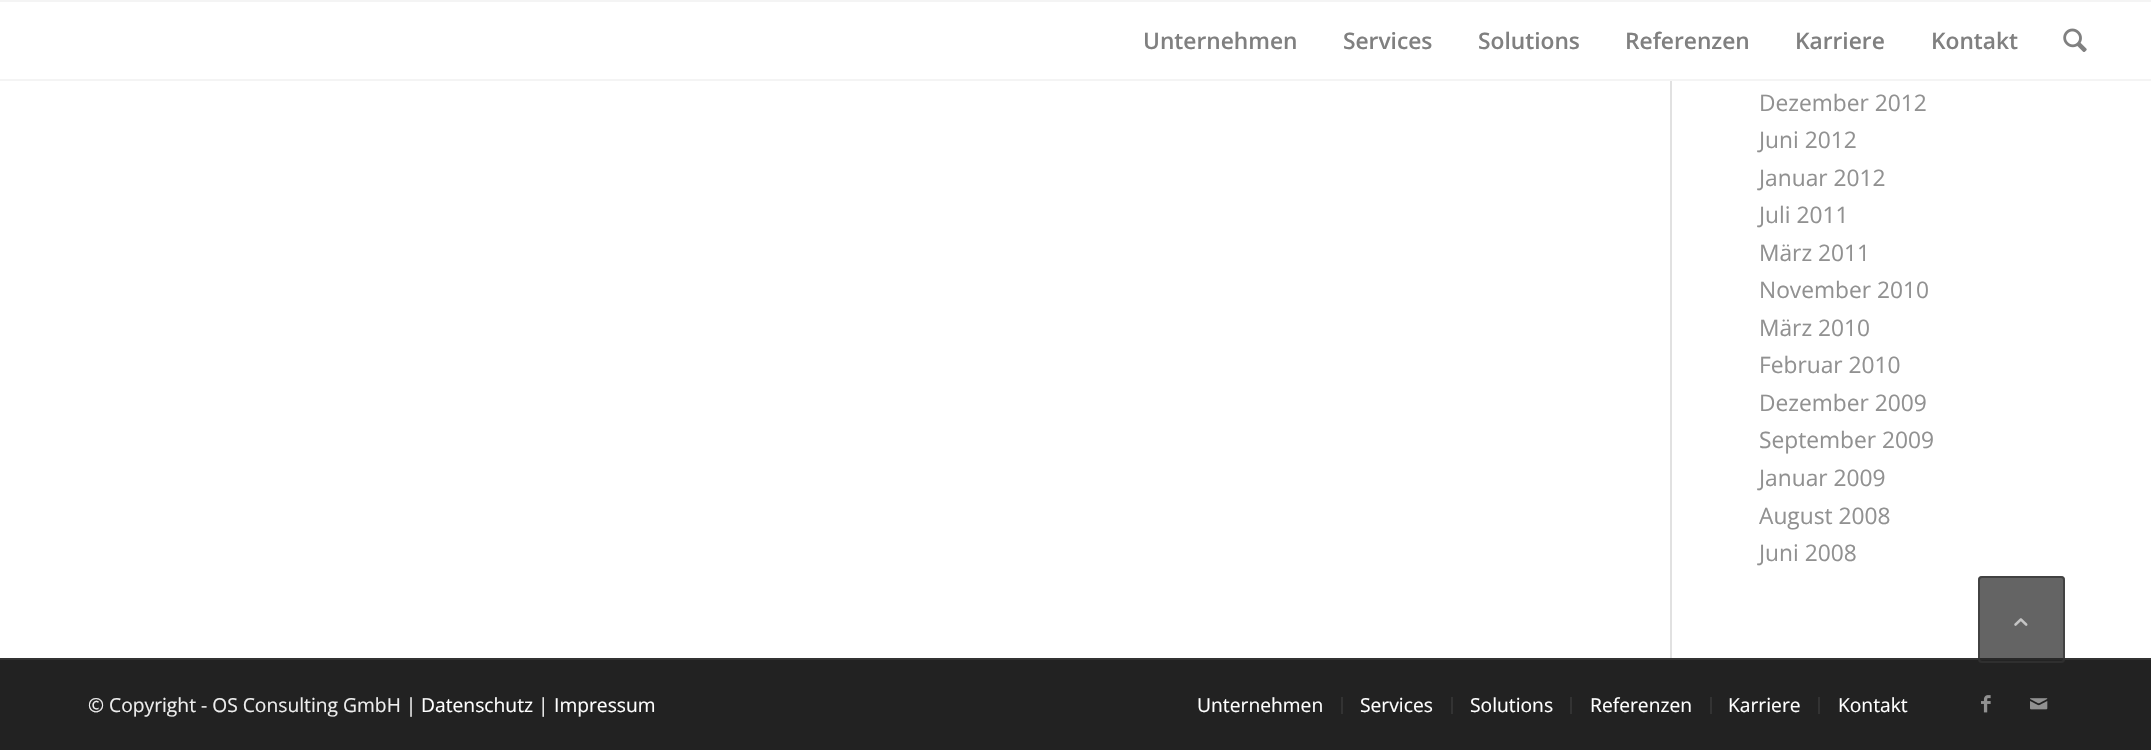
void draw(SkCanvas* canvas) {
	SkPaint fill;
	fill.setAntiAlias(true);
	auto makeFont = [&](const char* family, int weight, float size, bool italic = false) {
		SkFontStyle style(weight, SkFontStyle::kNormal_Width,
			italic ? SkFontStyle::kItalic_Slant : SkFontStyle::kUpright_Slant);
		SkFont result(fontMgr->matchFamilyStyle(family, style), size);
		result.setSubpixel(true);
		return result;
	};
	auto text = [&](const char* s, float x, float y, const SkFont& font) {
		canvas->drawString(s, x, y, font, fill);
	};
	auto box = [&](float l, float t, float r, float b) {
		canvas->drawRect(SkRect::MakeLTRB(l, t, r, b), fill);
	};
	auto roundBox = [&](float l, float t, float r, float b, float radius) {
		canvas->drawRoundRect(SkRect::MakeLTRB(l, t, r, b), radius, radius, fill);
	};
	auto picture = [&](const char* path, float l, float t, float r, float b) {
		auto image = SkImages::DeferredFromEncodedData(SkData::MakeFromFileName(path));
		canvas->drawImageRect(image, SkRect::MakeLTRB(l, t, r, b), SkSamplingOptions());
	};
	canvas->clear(0xFFFFFFFF);
	fill.setColor(0xFFF4F4F4);
	box(0, 0, 2151, 2);
	box(0, 79, 2151, 81);
	picture("image0.png", 2063, 28, 2087, 52);
	fill.setColor(0xFFE1E1E1);
	box(1670, 81, 1672, 660);
	fill.setColor(0xFF222222);
	box(0, 660, 2151, 750);
	fill.setColor(0xFF333333);
	box(0, 658, 2151, 660);
	box(1341, 697, 1343, 714);
	box(1451, 697, 1453, 714);
	box(1570, 697, 1572, 714);
	box(1710, 697, 1712, 714);
	box(1818, 697, 1820, 714);
	picture("image1.png", 1981, 695, 1991, 713);
	picture("image2.png", 2030, 698, 2048, 710);
	fill.setColor(0xB3222222);
	roundBox(1978, 576, 2065, 663, 4);
	fill.setStyle(SkPaint::kStroke_Style);
	fill.setStrokeWidth(2);
	fill.setColor(0xB3333333);
	canvas->drawRoundRect(SkRect::MakeLTRB(1979, 577, 2064, 662), 3, 3, fill);
	picture("image3.png", 2014, 618, 2028, 626);
	auto font1 = makeFont("Open Sans", 600, 22.75f);
	fill.setStyle(SkPaint::kFill_Style);
	fill.setColor(0xFF808080);
	text("Unternehmen", 1143, 49, font1);
	text("Services", 1343, 49, font1);
	text("Solutions", 1478, 49, font1);
	text("Referenzen", 1625, 49, font1);
	text("Karriere", 1795, 49, font1);
	text("Kontakt", 1931, 49, font1);
	auto font2 = makeFont("Open Sans", 400, 22.75f);
	fill.setColor(0xFF919191);
	text("Dezember 2012", 1759, 111, font2);
	text("Juni 2012", 1759, 148, font2);
	text("Januar 2012", 1759, 186, font2);
	text("Juli 2011", 1759, 223, font2);
	text("März 2011", 1759, 261, font2);
	text("November 2010", 1759, 298, font2);
	text("März 2010", 1759, 336, font2);
	text("Februar 2010", 1759, 373, font2);
	text("Dezember 2009", 1759, 411, font2);
	text("September 2009", 1759, 448, font2);
	text("Januar 2009", 1759, 486, font2);
	text("August 2008", 1759, 524, font2);
	text("Juni 2008", 1759, 561, font2);
	auto font3 = makeFont("Open Sans", 400, 19.25f);
	fill.setColor(0xFFEEEEEE);
	text("© Copyright - OS Consulting GmbH |", 88, 712, font3);
	fill.setColor(0xFFFFFFFF);
	text("Datenschutz", 421, 712, font3);
	fill.setColor(0xFFEEEEEE);
	text("|", 538, 712, font3);
	fill.setColor(0xFFFFFFFF);
	text("Impressum", 554, 712, font3);
	text("Unternehmen", 1197, 712, font3);
	text("Services", 1360, 712, font3);
	text("Solutions", 1470, 712, font3);
	text("Referenzen", 1590, 712, font3);
	text("Karriere", 1728, 712, font3);
	text("Kontakt", 1838, 712, font3);
}
